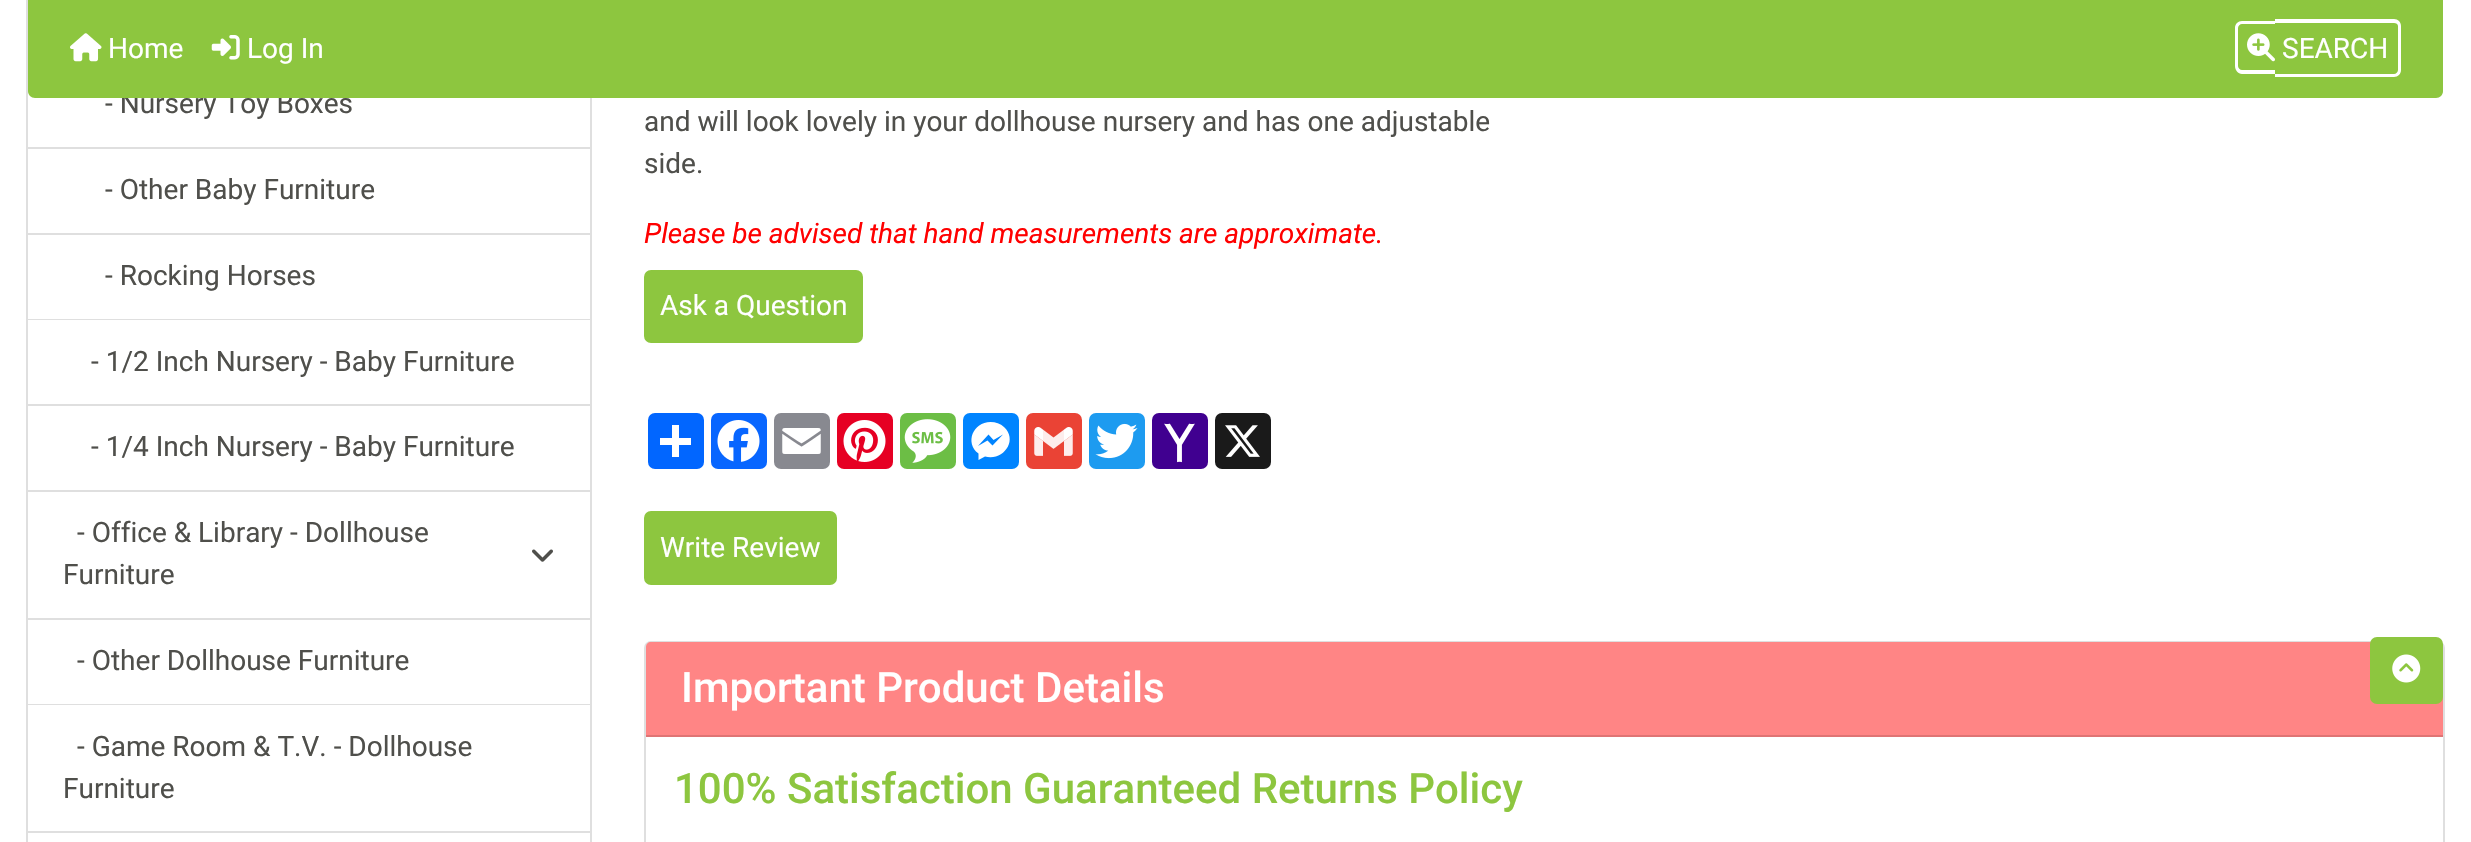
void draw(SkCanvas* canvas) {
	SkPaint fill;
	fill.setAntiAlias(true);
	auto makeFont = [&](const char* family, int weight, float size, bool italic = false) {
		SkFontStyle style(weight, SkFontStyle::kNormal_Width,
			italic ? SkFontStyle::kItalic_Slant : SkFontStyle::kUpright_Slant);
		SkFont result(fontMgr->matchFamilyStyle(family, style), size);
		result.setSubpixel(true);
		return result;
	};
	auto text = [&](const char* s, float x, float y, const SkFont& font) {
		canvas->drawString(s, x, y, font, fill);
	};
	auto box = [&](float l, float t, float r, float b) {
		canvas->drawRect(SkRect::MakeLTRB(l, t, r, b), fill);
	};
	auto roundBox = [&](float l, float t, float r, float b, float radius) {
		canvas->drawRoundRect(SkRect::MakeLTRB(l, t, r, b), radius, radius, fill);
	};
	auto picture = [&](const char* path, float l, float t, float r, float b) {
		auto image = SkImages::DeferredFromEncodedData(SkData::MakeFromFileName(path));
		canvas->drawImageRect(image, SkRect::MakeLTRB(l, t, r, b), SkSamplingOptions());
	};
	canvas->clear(0xFFFFFFFF);
	fill.setStyle(SkPaint::kStroke_Style);
	fill.setStrokeWidth(2);
	fill.setColor(0xFFDFDFDF);
	canvas->drawRect(SkRect::MakeLTRB(27, -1, 591, 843), fill);
	fill.setStyle(SkPaint::kFill_Style);
	box(28, 147, 590, 149);
	box(28, 233, 590, 235);
	box(28, 319, 590, 320);
	box(28, 404, 590, 406);
	box(28, 490, 590, 492);
	box(28, 618, 590, 620);
	picture("image3.png", 532, 549, 553, 562);
	box(28, 704, 590, 705);
	box(28, 831, 590, 833);
	fill.setColor(0xFF8DC63F);
	canvas->drawRoundRect(SkRect::MakeLTRB(645, 271, 862, 342), 6, 6, fill);
	fill.setStyle(SkPaint::kStroke_Style);
	canvas->drawRoundRect(SkRect::MakeLTRB(645, 271, 862, 342), 6, 6, fill);
	fill.setStyle(SkPaint::kFill_Style);
	fill.setColor(0xFF0166FF);
	roundBox(648, 413, 704, 469, 7);
	fill.setColor(0xFFFFFFFF);
	box(672, 425, 679, 457);
	box(660, 438, 691, 445);
	fill.setColor(0xFF0866FF);
	roundBox(711, 413, 767, 469, 7);
	picture("image4.png", 717, 420, 760, 462);
	fill.setColor(0xFF888990);
	roundBox(774, 413, 830, 469, 7);
	picture("image5.png", 782, 428, 821, 454);
	fill.setColor(0xFFE60023);
	roundBox(837, 413, 893, 469, 7);
	picture("image6.png", 843, 420, 886, 462);
	fill.setColor(0xFF6CBE45);
	roundBox(900, 413, 956, 469, 7);
	picture("image7.png", 904, 419, 951, 463);
	fill.setColor(0xFF0084FF);
	roundBox(963, 413, 1019, 469, 7);
	fill.setColor(0xFFFFFFFF);
	canvas->drawPath(SkPathBuilder().moveTo(990.5f, 422).cubicTo(973, 422, 964.5f, 443, 978.5f, 453.5f).lineTo(978.5f, 460).lineTo(985, 456.5f).cubicTo(1003, 461.5f, 1018.5f, 440.5f, 1004, 427).cubicTo(1000.5f, 423.5f, 995.5f, 422, 990.5f, 422).moveTo(992.5f, 445.5f).lineTo(987.5f, 440.5f).lineTo(978, 446).lineTo(988.5f, 434.5f).lineTo(993.5f, 440).lineTo(1003, 434.5f).close().detach(), fill);
	fill.setColor(0xFFEA4335);
	roundBox(1026, 413, 1082, 469, 7);
	picture("image8.png", 1034, 427, 1073, 456);
	fill.setColor(0xFF1D9BF0);
	roundBox(1089, 413, 1145, 469, 7);
	picture("image9.png", 1095, 423, 1138, 459);
	fill.setColor(0xFF400090);
	roundBox(1152, 413, 1208, 469, 7);
	picture("image10.png", 1164, 423, 1195, 463);
	fill.setColor(0xFF1A1A1A);
	roundBox(1215, 413, 1271, 469, 7);
	picture("image11.png", 1225, 425, 1260, 457);
	fill.setColor(0xFF8DC63F);
	canvas->drawRoundRect(SkRect::MakeLTRB(645, 512, 836, 584), 6, 6, fill);
	fill.setStyle(SkPaint::kStroke_Style);
	canvas->drawRoundRect(SkRect::MakeLTRB(645, 512, 836, 584), 6, 6, fill);
	fill.setColor(0xFFDFDFDF);
	canvas->drawRoundRect(SkRect::MakeLTRB(645, 642, 2444, 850), 6, 6, fill);
	fill.setStyle(SkPaint::kFill_Style);
	fill.setColor(0xFFFF8585);
	canvas->drawPath(SkPathBuilder().moveTo(651, 642).lineTo(2438, 642).cubicTo(2441, 642, 2443, 644, 2443, 647).lineTo(2443, 737).lineTo(646, 737).lineTo(646, 647).cubicTo(646, 644, 648, 642, 651, 642).close().detach(), fill);
	fill.setColor(0xFFDF7474);
	box(646, 735, 2443, 737);
	fill.setColor(0xFF8DC63F);
	canvas->drawRoundRect(SkRect::MakeLTRB(2371, 638, 2442, 703), 6, 6, fill);
	fill.setStyle(SkPaint::kStroke_Style);
	canvas->drawRoundRect(SkRect::MakeLTRB(2371, 638, 2442, 703), 6, 6, fill);
	picture("image12.png", 2392, 654, 2421, 683);
	auto font1 = makeFont("Roboto", 400, 28);
	fill.setStyle(SkPaint::kFill_Style);
	fill.setColor(0xFF4F4F4B);
	text("- Nursery Toy Boxes", 105, 113, font1);
	fill.setColor(0xFF8DC63F);
	canvas->drawPath(SkPathBuilder().moveTo(28, 0).lineTo(2443, 0).lineTo(2443, 91).cubicTo(2443, 95, 2440, 98, 2436, 98).lineTo(35, 98).cubicTo(31, 98, 28, 95, 28, 91).close().detach(), fill);
	fill.setColor(0xFFFFFFFF);
	canvas->drawPath(SkPathBuilder(SkPathFillType::kEvenOdd).moveTo(2275, 19).lineTo(2394, 19).cubicTo(2398, 19, 2401, 22, 2401, 26).lineTo(2401, 70).cubicTo(2401, 74, 2398, 77, 2394, 77).lineTo(2275, 77).close().moveTo(2275, 23).lineTo(2394, 23).cubicTo(2396, 23, 2398, 24, 2398, 26).lineTo(2398, 70).cubicTo(2398, 72, 2396, 74, 2394, 74).lineTo(2275, 74).close().detach(), fill);
	text("SEARCH", 2282, 58, font1);
	canvas->drawPath(SkPathBuilder(SkPathFillType::kEvenOdd).moveTo(2242, 21).lineTo(2275, 21).lineTo(2275, 74).lineTo(2242, 74).cubicTo(2238, 74, 2235, 70, 2235, 66).lineTo(2235, 28).cubicTo(2235, 24, 2238, 21, 2242, 21).close().moveTo(2242, 24).lineTo(2275, 24).lineTo(2275, 70).lineTo(2242, 70).cubicTo(2240, 70, 2238, 68, 2238, 66).lineTo(2238, 28).cubicTo(2238, 26, 2240, 24, 2242, 24).close().detach(), fill);
	picture("image2.png", 2247, 33, 2275, 62);
	text("Log In", 247, 58, font1);
	picture("image1.png", 211, 35, 240, 60);
	text("Home", 108, 58, font1);
	picture("image0.png", 70, 33, 102, 62);
	fill.setColor(0xFF4F4F4B);
	text("- Other Baby Furniture", 105, 199, font1);
	text("- Rocking Horses", 105, 285, font1);
	text("- 1/2 Inch Nursery - Baby Furniture", 91, 371, font1);
	text("- 1/4 Inch Nursery - Baby Furniture", 91, 456, font1);
	text("- Office & Library - Dollhouse", 77, 542, font1);
	text("Furniture", 63, 584, font1);
	text("- Other Dollhouse Furniture", 77, 670, font1);
	text("- Game Room & T.V. - Dollhouse", 77, 756, font1);
	text("Furniture", 63, 798, font1);
	text("and will look lovely in your dollhouse nursery and has one adjustable", 644, 131, font1);
	text("side.", 644, 173, font1);
	auto font2 = makeFont("Roboto", 400, 28, true);
	fill.setColor(0xFFFF0000);
	text("Please be advised that hand measurements are approximate.", 644, 243, font2);
	fill.setColor(0xFFFFFFFF);
	text("Ask a Question", 660, 315, font1);
	text("Write Review", 660, 557, font1);
	auto font3 = makeFont("Roboto", 500, 42);
	text("Important Product Details", 681, 702, font3);
	fill.setColor(0xFF8DC63F);
	text("100% Satisfaction Guaranteed Returns Policy", 674, 803, font3);
}
